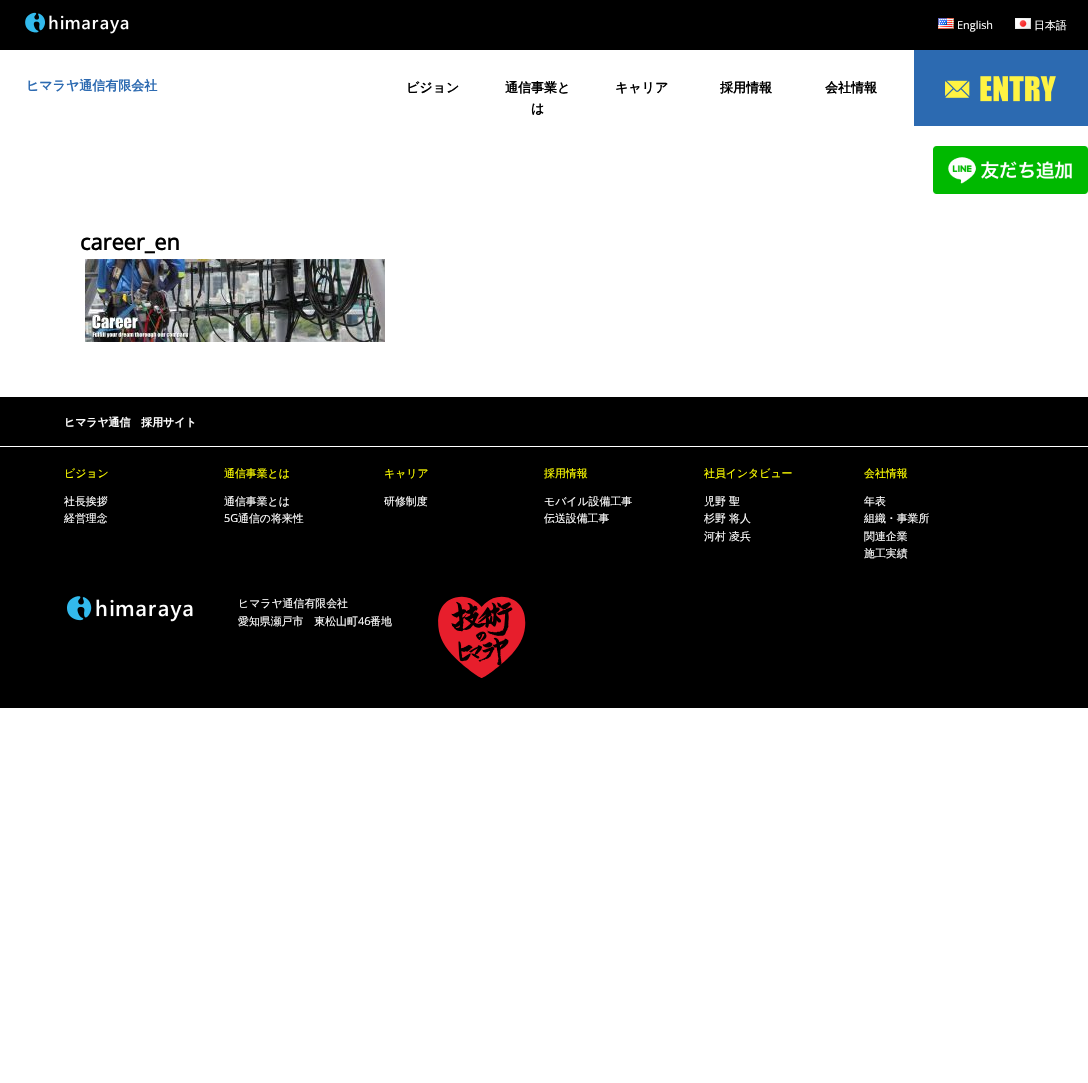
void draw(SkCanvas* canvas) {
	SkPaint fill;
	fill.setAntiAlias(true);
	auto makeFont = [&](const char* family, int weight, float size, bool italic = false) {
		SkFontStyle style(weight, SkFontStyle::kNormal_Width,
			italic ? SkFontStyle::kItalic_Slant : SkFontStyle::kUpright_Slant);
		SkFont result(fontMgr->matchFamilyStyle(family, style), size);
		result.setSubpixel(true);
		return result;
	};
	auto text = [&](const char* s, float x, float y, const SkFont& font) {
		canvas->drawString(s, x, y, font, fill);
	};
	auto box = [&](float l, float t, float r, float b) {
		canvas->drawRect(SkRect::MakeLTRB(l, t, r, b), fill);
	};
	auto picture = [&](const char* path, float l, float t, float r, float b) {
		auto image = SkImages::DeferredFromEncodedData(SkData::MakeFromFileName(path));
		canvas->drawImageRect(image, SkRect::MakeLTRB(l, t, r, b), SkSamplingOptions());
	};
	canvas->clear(0xFFFFFFFF);
	fill.setColor(0xFF000000);
	box(0, 0, 1088, 50);
	picture("image0.png", 25, 12, 129, 34);
	picture("image1.png", 938, 18, 954, 29);
	picture("image2.png", 1015, 18, 1031, 29);
	fill.setColor(0xFF2C6AB1);
	box(914, 50, 1088, 126);
	picture("image3.png", 945, 76, 1056, 102);
	picture("image4.png", 933, 146, 1088, 194);
	picture("image5.png", 85, 259, 385, 342);
	fill.setColor(0xFF000000);
	box(0, 397, 1088, 708);
	fill.setColor(0xFFFFFFFF);
	box(0, 446, 1088, 447);
	picture("image6.png", 67, 596, 193, 622);
	picture("image7.png", 438, 596, 526, 678);
	auto font1 = makeFont("Open Sans", 400, 10.9f);
	text("English", 957, 29, font1);
	auto font2 = makeFont("WenQuanYi Zen Hei", 500, 10.9f);
	text("日本語", 1034, 29, font2);
	auto font3 = makeFont("WenQuanYi Zen Hei", 700, 13);
	fill.setColor(0xFF2C6AB1);
	text("ヒマラヤ通信有限会社", 26, 90, font3);
	fill.setColor(0xFF000000);
	text("ビジョン", 406, 92, font3);
	text("通信事業と", 505, 92, font3);
	text("は", 531, 113, font3);
	text("キャリア", 615, 92, font3);
	text("採用情報", 720, 92, font3);
	text("会社情報", 825, 92, font3);
	auto font4 = makeFont("Open Sans", 700, 21.75f);
	text("career_en", 80, 250, font4);
	auto font5 = makeFont("WenQuanYi Zen Hei", 700, 10.9f);
	fill.setColor(0xFFFFFFFF);
	text("ヒマラヤ通信　採用サイト", 64, 426, font5);
	fill.setColor(0xFFFFFF00);
	text("ビジョン", 64, 477, font2);
	fill.setColor(0xFFFFFFFF);
	text("社長挨拶", 64, 505, font2);
	text("経営理念", 64, 522, font2);
	fill.setColor(0xFFFFFF00);
	text("通信事業とは", 224, 477, font2);
	fill.setColor(0xFFFFFFFF);
	text("通信事業とは", 224, 505, font2);
	text("5G", 224, 522, font1);
	text("通信の将来性", 238, 522, font2);
	fill.setColor(0xFFFFFF00);
	text("キャリア", 384, 477, font2);
	fill.setColor(0xFFFFFFFF);
	text("研修制度", 384, 505, font2);
	fill.setColor(0xFFFFFF00);
	text("採用情報", 544, 477, font2);
	fill.setColor(0xFFFFFFFF);
	text("モバイル設備工事", 544, 505, font2);
	text("伝送設備工事", 544, 522, font2);
	fill.setColor(0xFFFFFF00);
	text("社員インタビュー", 704, 477, font2);
	fill.setColor(0xFFFFFFFF);
	text("児野 聖", 704, 505, font2);
	text("杉野 将人", 704, 522, font2);
	text("河村 凌兵", 704, 540, font2);
	fill.setColor(0xFFFFFF00);
	text("会社情報", 864, 477, font2);
	fill.setColor(0xFFFFFFFF);
	text("年表", 864, 505, font2);
	text("組織・事業所", 864, 522, font2);
	text("関連企業", 864, 540, font2);
	text("施工実績", 864, 557, font2);
	text("ヒマラヤ通信有限会社", 238, 607, font2);
	text("愛知県瀬戸市　東松山町", 238, 625, font2);
	text("46", 358, 625, font1);
	text("番地", 370, 625, font2);
}
